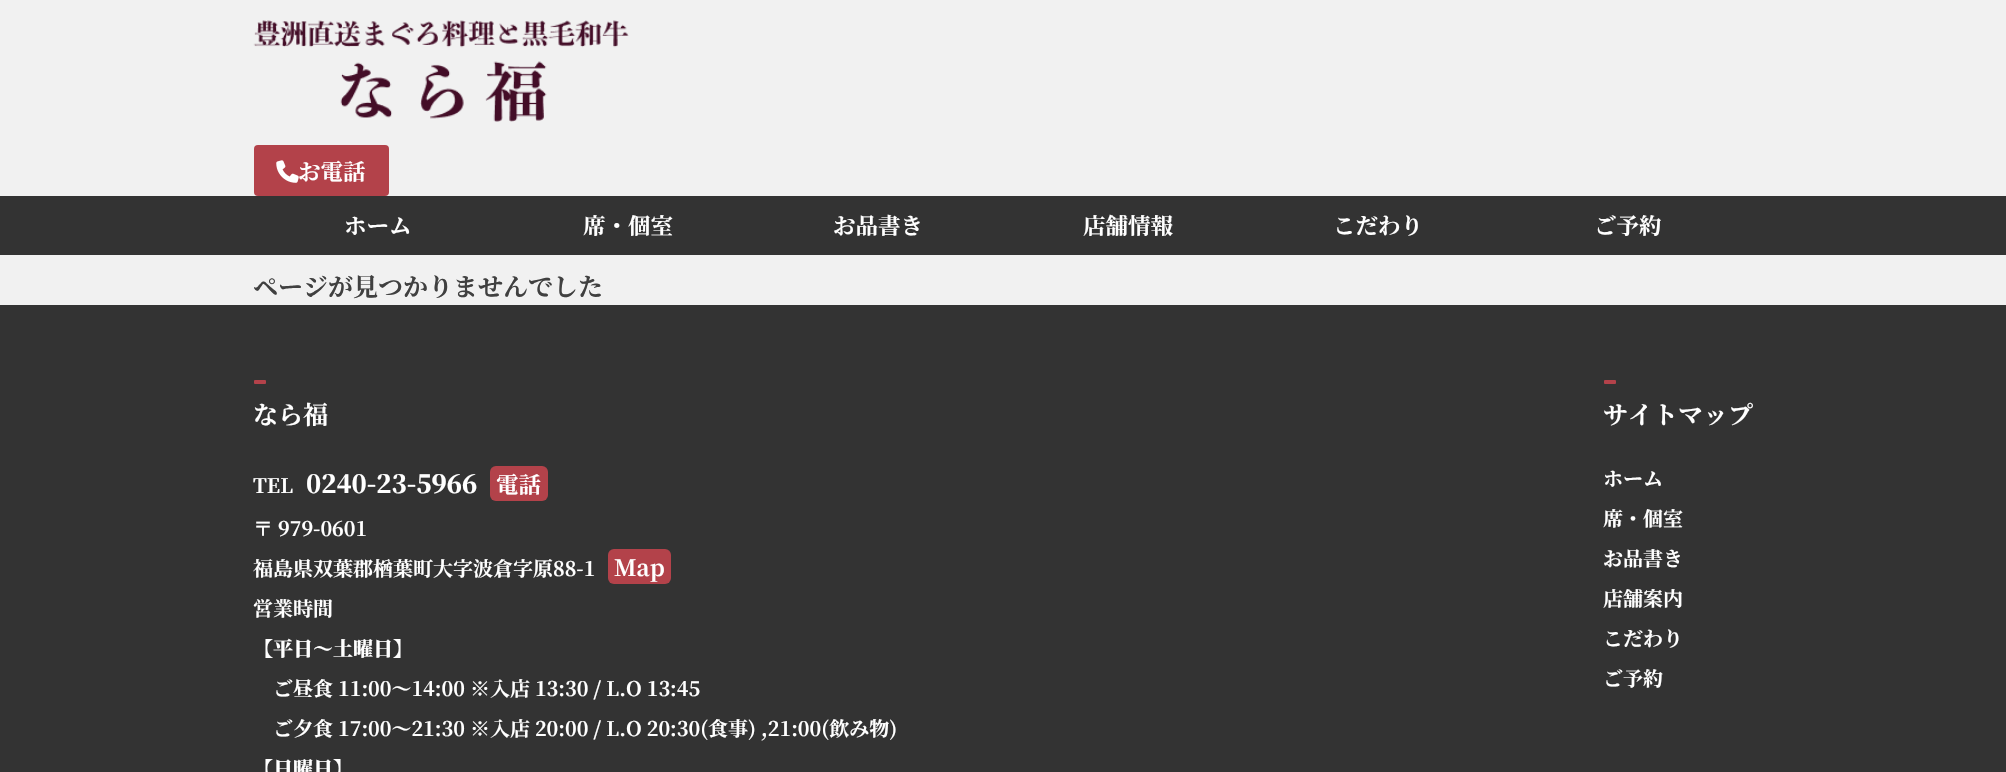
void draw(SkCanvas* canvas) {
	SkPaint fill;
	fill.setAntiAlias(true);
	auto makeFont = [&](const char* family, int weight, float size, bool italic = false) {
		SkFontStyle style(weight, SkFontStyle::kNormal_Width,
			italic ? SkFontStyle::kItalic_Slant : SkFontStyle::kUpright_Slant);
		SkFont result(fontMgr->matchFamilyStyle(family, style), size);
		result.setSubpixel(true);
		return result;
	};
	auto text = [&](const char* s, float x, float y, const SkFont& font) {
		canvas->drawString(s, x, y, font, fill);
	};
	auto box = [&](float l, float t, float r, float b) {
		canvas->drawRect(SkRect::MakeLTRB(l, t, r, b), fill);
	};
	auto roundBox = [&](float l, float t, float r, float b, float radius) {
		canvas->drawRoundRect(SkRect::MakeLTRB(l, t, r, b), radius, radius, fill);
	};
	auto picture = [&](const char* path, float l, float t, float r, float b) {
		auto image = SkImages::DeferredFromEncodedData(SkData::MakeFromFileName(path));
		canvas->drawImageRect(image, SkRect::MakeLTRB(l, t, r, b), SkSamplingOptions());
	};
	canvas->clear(0xFFF1F1F1);
	picture("image0.png", 253, 20, 629, 122);
	fill.setColor(0xFFB3424A);
	roundBox(254, 145, 389, 196, 4);
	picture("image1.png", 276, 160, 299, 183);
	fill.setColor(0xFF333333);
	box(0, 196, 2006, 255);
	box(0, 305, 2006, 772);
	fill.setColor(0xFFB3424A);
	roundBox(254, 380, 266, 384, 1);
	roundBox(490, 466, 548, 501, 6);
	roundBox(608, 549, 671, 584, 6);
	roundBox(1604, 380, 1616, 384, 1);
	auto font1 = makeFont("Noto Serif JP", 700, 22.5f);
	fill.setColor(0xFFFFFFFF);
	text("お電話", 298, 180, font1);
	text("ホーム", 344, 234, font1);
	text("席・個室", 583, 234, font1);
	text("お品書き", 833, 234, font1);
	text("店舗情報", 1083, 234, font1);
	text("こだわり", 1333, 234, font1);
	text("ご予約", 1594, 234, font1);
	auto font2 = makeFont("Noto Serif JP", 700, 25);
	fill.setColor(0xFF404040);
	text("ページが見つかりませんでした", 253, 296, font2);
	fill.setColor(0xFFFFFFFF);
	text("なら福", 253, 424, font2);
	auto font3 = makeFont("Noto Serif JP", 700, 20);
	text("TEL", 253, 493, font3);
	auto font4 = makeFont("Noto Serif JP", 900, 25);
	text("0240-23-5966", 306, 493, font4);
	text("電話", 496, 493, font1);
	text("〒 979-0601", 253, 536, font3);
	text("福島県双葉郡楢葉町大字波倉字原88-1", 253, 576, font3);
	text("Map", 614, 576, font1);
	text("営業時間", 253, 616, font3);
	auto font5 = makeFont("Noto Serif JP", 900, 20);
	text("【平日〜土曜日】", 253, 656, font5);
	text("ご昼食 11:00〜14:00 ※入店 13:30 / L.O 13:45", 273, 696, font3);
	text("ご夕食 17:00〜21:30 ※入店 20:00 / L.O 20:30(食事) ,21:00(飲み物)", 273, 736, font3);
	text("【日曜日】", 253, 776, font5);
	text("サイトマップ", 1603, 424, font2);
	text("ホーム", 1603, 486, font3);
	text("席・個室", 1603, 526, font3);
	text("お品書き", 1603, 566, font3);
	text("店舗案内", 1603, 606, font3);
	text("こだわり", 1603, 646, font3);
	text("ご予約", 1603, 686, font3);
}
